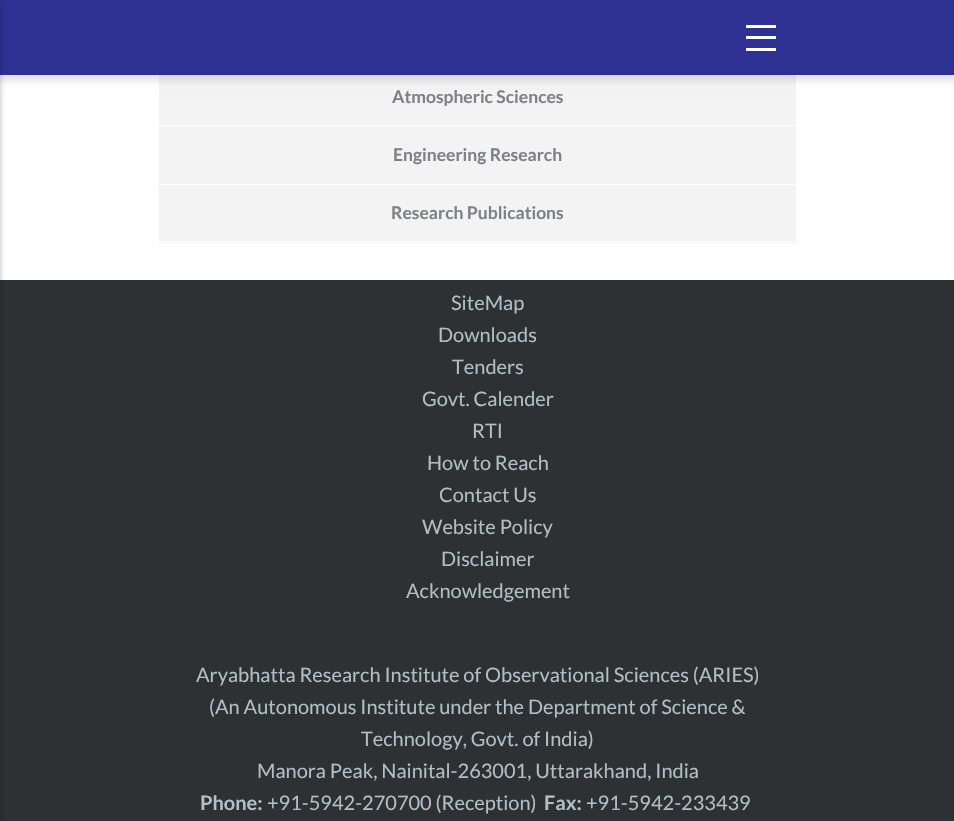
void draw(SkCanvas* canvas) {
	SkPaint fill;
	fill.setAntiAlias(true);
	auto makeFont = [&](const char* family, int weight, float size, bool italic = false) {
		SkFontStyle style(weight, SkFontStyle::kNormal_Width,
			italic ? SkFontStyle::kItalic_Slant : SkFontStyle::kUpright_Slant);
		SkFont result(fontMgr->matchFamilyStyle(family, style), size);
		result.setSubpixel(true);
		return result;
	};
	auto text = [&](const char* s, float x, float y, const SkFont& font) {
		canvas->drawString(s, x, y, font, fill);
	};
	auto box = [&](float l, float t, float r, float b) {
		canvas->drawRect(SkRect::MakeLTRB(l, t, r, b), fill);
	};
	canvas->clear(0xFFFFFFFF);
	fill.setColor(0xFFF3F3F3);
	box(159, 75, 796, 243);
	fill.setColor(0x1A000000);
	fill.setMaskFilter(SkMaskFilter::MakeBlur(kNormal_SkBlurStyle, 3));
	canvas->drawRect(SkRect::MakeLTRB(-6, -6, 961, 81), fill);
	fill.setMaskFilter(nullptr);
	fill.setColor(0xFF2F3192);
	box(0, 0, 954, 75);
	fill.setColor(0xFF2E3133);
	box(0, 280, 954, 821);
	fill.setColor(0x33000000);
	fill.setMaskFilter(SkMaskFilter::MakeBlur(kNormal_SkBlurStyle, 2.5f));
	canvas->drawRect(SkRect::MakeLTRB(-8, 4, 1, 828), fill);
	fill.setMaskFilter(nullptr);
	fill.setColor(0xFFFFFFFF);
	box(746, 25, 776, 28);
	box(746, 36, 776, 39);
	box(746, 48, 776, 51);
	box(159, 125, 796, 126);
	box(159, 184, 796, 185);
	box(159, 241, 796, 242);
	auto font1 = makeFont("Lato", 700, 17.5f);
	fill.setColor(0xFF7F8284);
	text("Atmospheric Sciences", 392, 103, font1);
	text("Engineering Research", 393, 161, font1);
	text("Research Publications", 391, 219, font1);
	auto font2 = makeFont("Lato", 400, 20);
	fill.setColor(0xFFB1BEC5);
	text("SiteMap", 451, 310, font2);
	text("Downloads", 438, 342, font2);
	text("Tenders", 452, 374, font2);
	text("Govt. Calender", 422, 406, font2);
	text("RTI", 472, 438, font2);
	text("How to Reach", 427, 470, font2);
	text("Contact Us", 439, 502, font2);
	text("Website Policy", 422, 534, font2);
	text("Disclaimer", 441, 566, font2);
	text("Acknowledgement", 406, 598, font2);
	text("Aryabhatta Research Institute of Observational Sciences (ARIES)", 196, 682, font2);
	text("(An Autonomous Institute under the Department of Science &", 209, 714, font2);
	text("Technology, Govt. of India)", 361, 746, font2);
	text("Manora Peak, Nainital-263001, Uttarakhand, India", 257, 778, font2);
	auto font3 = makeFont("Lato", 700, 20);
	text("Phone:", 200, 810, font3);
	text("+91-5942-270700 (Reception)", 267, 810, font2);
	text("Fax:", 544, 810, font3);
	text("+91-5942-233439", 586, 810, font2);
}
